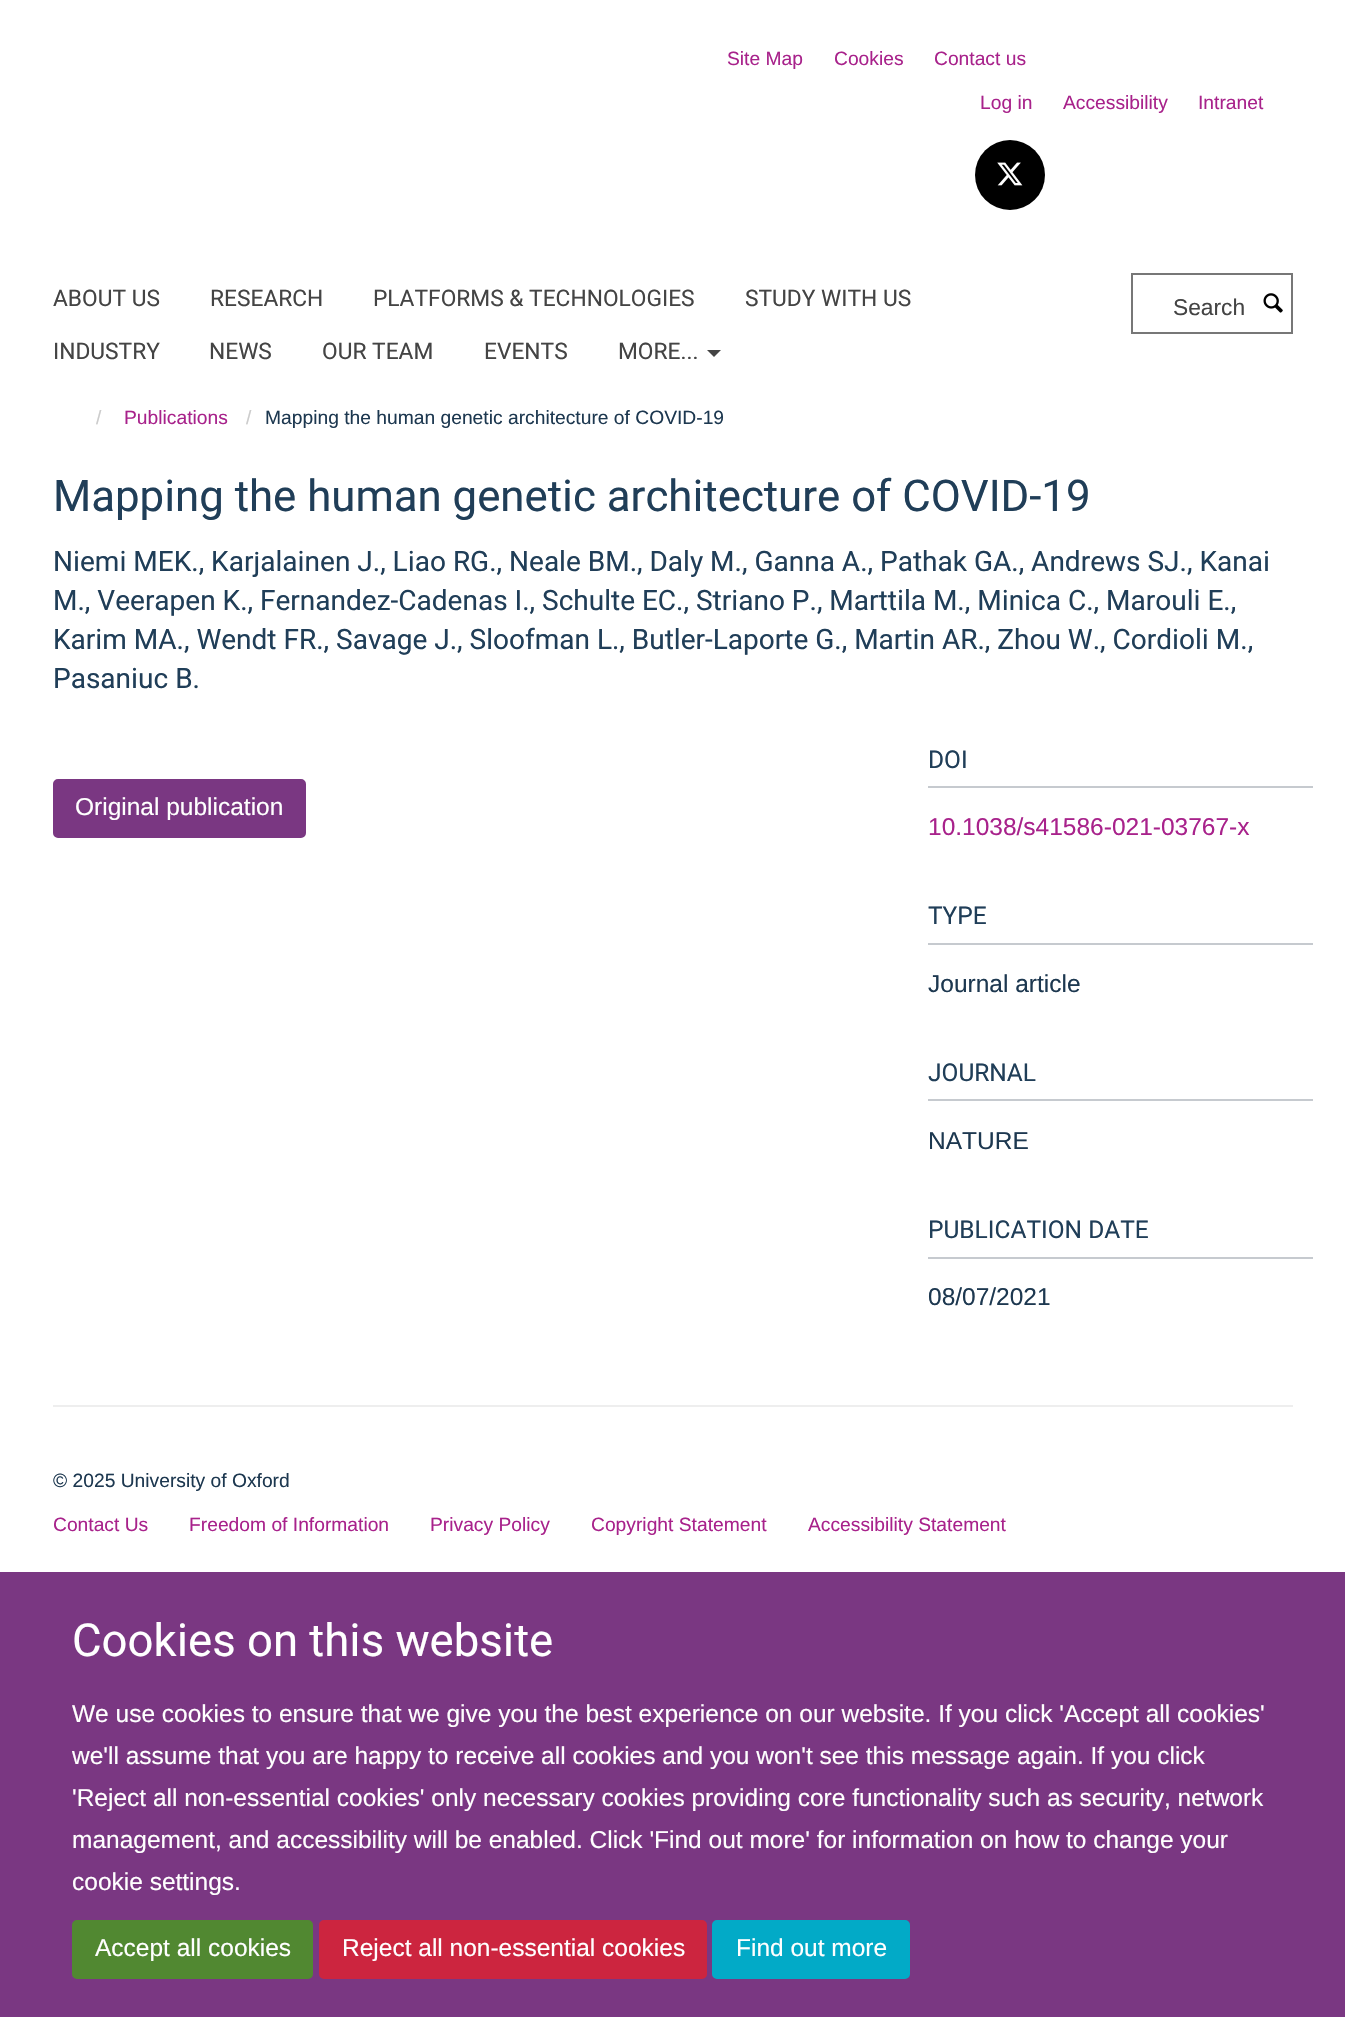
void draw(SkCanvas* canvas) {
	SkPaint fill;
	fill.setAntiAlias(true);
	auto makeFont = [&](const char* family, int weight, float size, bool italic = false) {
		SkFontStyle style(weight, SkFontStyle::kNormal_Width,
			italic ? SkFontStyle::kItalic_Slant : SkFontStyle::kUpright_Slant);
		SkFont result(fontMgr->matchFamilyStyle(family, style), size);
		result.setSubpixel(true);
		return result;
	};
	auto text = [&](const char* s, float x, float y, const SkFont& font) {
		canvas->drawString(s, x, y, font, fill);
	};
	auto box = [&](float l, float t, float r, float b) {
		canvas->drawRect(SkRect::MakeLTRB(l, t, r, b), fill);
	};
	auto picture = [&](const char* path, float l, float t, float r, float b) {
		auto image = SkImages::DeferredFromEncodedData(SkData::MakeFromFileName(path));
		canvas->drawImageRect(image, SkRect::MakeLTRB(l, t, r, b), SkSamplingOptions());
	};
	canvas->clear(0xFFFFFFFF);
	fill.setColor(0xFF000000);
	canvas->drawCircle(1010, 175, 35, fill);
	picture("image0.png", 997, 162, 1023, 186);
	fill.setColor(0xFF444444);
	canvas->drawPath(SkPathBuilder().moveTo(707, 350).lineTo(721, 350).lineTo(714, 357).close().detach(), fill);
	fill.setStyle(SkPaint::kStroke_Style);
	fill.setStrokeWidth(2);
	fill.setColor(0xFF777777);
	canvas->drawRect(SkRect::MakeLTRB(1132, 274, 1292, 333), fill);
	picture("image1.png", 1263, 293, 1283, 313);
	fill.setStyle(SkPaint::kFill_Style);
	fill.setColor(0xFF7A3782);
	canvas->drawRoundRect(SkRect::MakeLTRB(54, 780, 305, 837), 4, 4, fill);
	fill.setStyle(SkPaint::kStroke_Style);
	canvas->drawRoundRect(SkRect::MakeLTRB(54, 780, 305, 837), 4, 4, fill);
	fill.setStyle(SkPaint::kFill_Style);
	fill.setColor(0xFFC6CACF);
	box(928, 786, 1313, 788);
	box(928, 943, 1313, 945);
	box(928, 1099, 1313, 1101);
	box(928, 1257, 1313, 1259);
	fill.setColor(0xFFEEEEEE);
	box(53, 1405, 1293, 1407);
	fill.setColor(0xFF7A3782);
	box(0, 1572, 1345, 2017);
	fill.setColor(0xFF518831);
	canvas->drawRoundRect(SkRect::MakeLTRB(73, 1921, 312, 1978), 4, 4, fill);
	fill.setStyle(SkPaint::kStroke_Style);
	canvas->drawRoundRect(SkRect::MakeLTRB(73, 1921, 312, 1978), 4, 4, fill);
	fill.setStyle(SkPaint::kFill_Style);
	fill.setColor(0xFFCC253F);
	canvas->drawRoundRect(SkRect::MakeLTRB(320, 1921, 706, 1978), 4, 4, fill);
	fill.setStyle(SkPaint::kStroke_Style);
	canvas->drawRoundRect(SkRect::MakeLTRB(320, 1921, 706, 1978), 4, 4, fill);
	fill.setStyle(SkPaint::kFill_Style);
	fill.setColor(0xFF02AAC7);
	canvas->drawRoundRect(SkRect::MakeLTRB(713, 1921, 909, 1978), 4, 4, fill);
	fill.setStyle(SkPaint::kStroke_Style);
	canvas->drawRoundRect(SkRect::MakeLTRB(713, 1921, 909, 1978), 4, 4, fill);
	auto font1 = makeFont("Liberation Sans", 400, 19.25f);
	fill.setStyle(SkPaint::kFill_Style);
	fill.setColor(0xFFA8228B);
	text("Site Map", 727, 65, font1);
	text("Cookies", 834, 65, font1);
	text("Contact us", 934, 65, font1);
	text("Log in", 980, 109, font1);
	text("Accessibility", 1063, 109, font1);
	text("Intranet", 1198, 109, font1);
	auto font2 = makeFont("Heebo", 400, 22.75f);
	fill.setColor(0xFF444444);
	text("ABOUT US", 53, 306, font2);
	text("RESEARCH", 210, 306, font2);
	text("PLATFORMS & TECHNOLOGIES", 373, 306, font2);
	text("STUDY WITH US", 745, 306, font2);
	text("INDUSTRY", 53, 359, font2);
	text("NEWS", 209, 359, font2);
	text("OUR TEAM", 322, 359, font2);
	text("EVENTS", 484, 359, font2);
	text("MORE...", 618, 359, font2);
	auto font3 = makeFont("Liberation Sans", 400, 22.75f);
	text("Search", 1173, 315, font3);
	fill.setColor(0xFFCCCCCC);
	text("/", 96, 424, font1);
	fill.setColor(0xFFA8228B);
	text("Publications", 124, 424, font1);
	fill.setColor(0xFFCCCCCC);
	text("/", 246, 424, font1);
	fill.setColor(0xFF1D3850);
	text("Mapping the human genetic architecture of COVID-19", 265, 424, font1);
	auto font4 = makeFont("Heebo", 400, 43.75f);
	fill.setColor(0xFF203E58);
	text("Mapping the human genetic architecture of COVID-19", 53, 511, font4);
	auto font5 = makeFont("Heebo", 400, 28);
	text("Niemi MEK., Karjalainen J., Liao RG., Neale BM., Daly M., Ganna A., Pathak GA., Andrews SJ., Kanai", 53, 571, font5);
	text("M., Veerapen K., Fernandez-Cadenas I., Schulte EC., Striano P., Marttila M., Minica C., Marouli E.,", 53, 610, font5);
	text("Karim MA., Wendt FR., Savage J., Sloofman L., Butler-Laporte G., Martin AR., Zhou W., Cordioli M.,", 53, 649, font5);
	text("Pasaniuc B.", 53, 688, font5);
	auto font6 = makeFont("Liberation Sans", 400, 24.5f);
	fill.setColor(0xFFFFFFFF);
	text("Original publication", 75, 815, font6);
	auto font7 = makeFont("Heebo", 400, 24.5f);
	fill.setColor(0xFF203E58);
	text("DOI", 928, 768, font7);
	fill.setColor(0xFFA8228B);
	text("10.1038/s41586-021-03767-x", 928, 835, font6);
	fill.setColor(0xFF203E58);
	text("TYPE", 928, 924, font7);
	fill.setColor(0xFF1D3850);
	text("Journal article", 928, 992, font6);
	fill.setColor(0xFF203E58);
	text("JOURNAL", 928, 1081, font7);
	fill.setColor(0xFF1D3850);
	text("NATURE", 928, 1149, font6);
	fill.setColor(0xFF203E58);
	text("PUBLICATION DATE", 928, 1238, font7);
	fill.setColor(0xFF1D3850);
	text("08/07/2021", 928, 1305, font6);
	text("© 2025 University of Oxford", 53, 1487, font1);
	fill.setColor(0xFFA8228B);
	text("Contact Us", 53, 1531, font1);
	text("Freedom of Information", 189, 1531, font1);
	text("Privacy Policy", 430, 1531, font1);
	text("Copyright Statement", 591, 1531, font1);
	text("Accessibility Statement", 808, 1531, font1);
	auto font8 = makeFont("Heebo", 400, 45.5f);
	fill.setColor(0xFFFFFFFF);
	text("Cookies on this website", 72, 1656, font8);
	text("We use cookies to ensure that we give you the best experience on our website. If you click 'Accept all cookies'", 72, 1722, font6);
	text("we'll assume that you are happy to receive all cookies and you won't see this message again. If you click", 72, 1764, font6);
	text("'Reject all non-essential cookies' only necessary cookies providing core functionality such as security, network", 72, 1806, font6);
	text("management, and accessibility will be enabled. Click 'Find out more' for information on how to change your", 72, 1848, font6);
	text("cookie settings.", 72, 1890, font6);
	text("Accept all cookies", 95, 1956, font6);
	text("Reject all non-essential cookies", 342, 1956, font6);
	text("Find out more", 736, 1956, font6);
}
